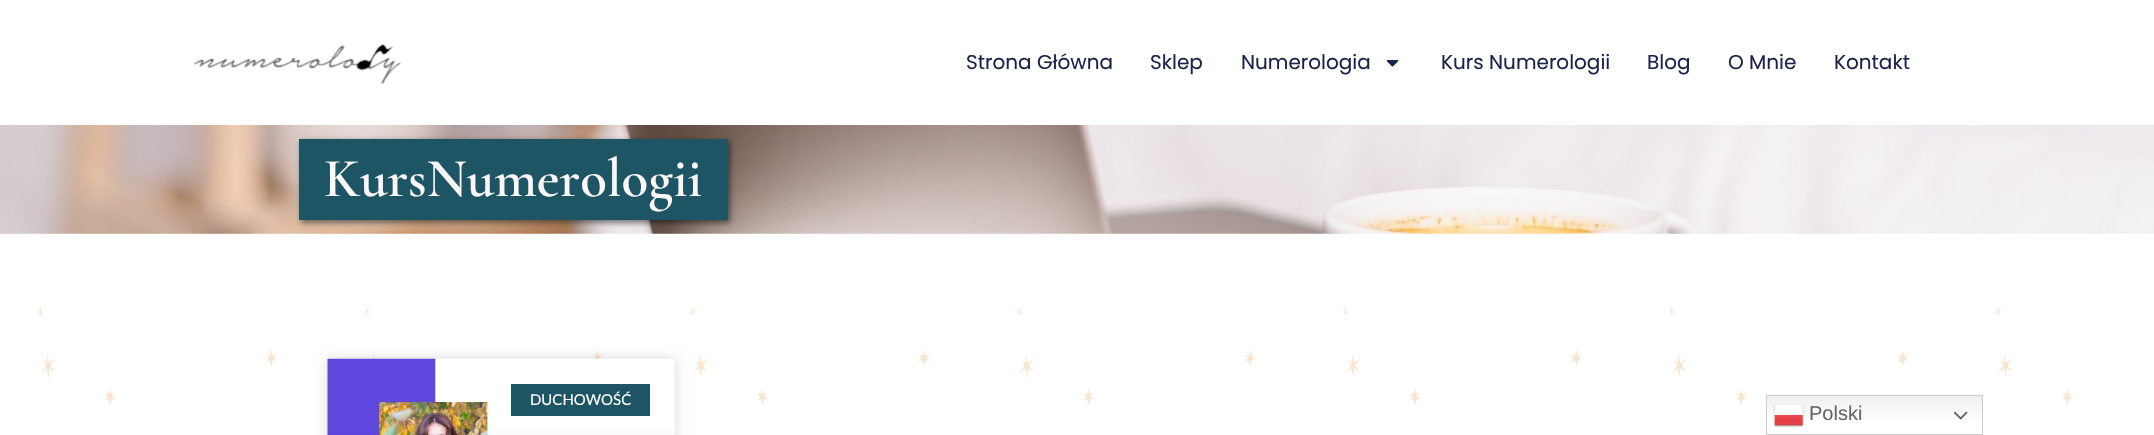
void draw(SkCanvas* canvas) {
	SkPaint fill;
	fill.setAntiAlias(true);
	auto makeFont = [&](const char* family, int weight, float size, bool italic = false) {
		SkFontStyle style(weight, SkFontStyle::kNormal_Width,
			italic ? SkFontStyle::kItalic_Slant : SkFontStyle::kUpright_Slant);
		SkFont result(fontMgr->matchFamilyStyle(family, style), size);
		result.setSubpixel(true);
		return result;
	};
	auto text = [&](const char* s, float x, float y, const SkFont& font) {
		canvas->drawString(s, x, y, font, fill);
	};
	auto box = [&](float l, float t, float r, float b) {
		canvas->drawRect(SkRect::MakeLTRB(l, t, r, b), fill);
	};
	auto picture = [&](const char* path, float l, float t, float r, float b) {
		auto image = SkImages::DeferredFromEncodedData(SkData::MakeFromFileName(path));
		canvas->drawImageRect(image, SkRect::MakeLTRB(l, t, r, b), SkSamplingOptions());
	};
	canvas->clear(0xFFFFFFFF);
	picture("image0.png", 194, 44, 401, 84);
	picture("image1.png", 1386, 60, 1399, 67);
	picture("image2.png", 0, 125, 2154, 234);
	fill.setColor(0x80000000);
	fill.setMaskFilter(SkMaskFilter::MakeBlur(kNormal_SkBlurStyle, 3));
	canvas->drawRect(SkRect::MakeLTRB(301, 141, 730, 223), fill);
	fill.setMaskFilter(nullptr);
	fill.setColor(0xFF1E5564);
	box(299, 139, 728, 220);
	picture("image3.png", 37, 306, 2073, 405);
	fill.setColor(0x26000000);
	fill.setMaskFilter(SkMaskFilter::MakeBlur(kNormal_SkBlurStyle, 6));
	canvas->drawRect(SkRect::MakeLTRB(328, 359, 675, 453), fill);
	fill.setMaskFilter(nullptr);
	picture("image4.png", 327, 358, 675, 435);
	fill.setColor(0xFF1E5564);
	box(511, 384, 650, 416);
	{
		const SkColor colors[] = {0xFFEFEFEF, 0xFFFFFFFF};
		const float stops[] = {0, 0.7f};
		const SkPoint ends[] = {{1874, 395}, {1874, 435}};
		fill.setShader(SkGradientShader::MakeLinear(ends, colors, stops, 2, SkTileMode::kClamp));
		fill.setAlpha(255);
	}
	box(1767, 396, 1982, 419);
	fill.setStyle(SkPaint::kStroke_Style);
	fill.setStrokeWidth(1);
	fill.setShader(nullptr);
	fill.setColor(0xFFCCCCCC);
	canvas->drawRect(SkRect::MakeLTRB(1766.5f, 395.5f, 1982.5f, 434.5f), fill);
	picture("image5.png", 1773, 404, 1804, 427);
	picture("image6.png", 1954, 411, 1968, 420);
	auto font1 = makeFont("Poppins", 400, 20);
	fill.setStyle(SkPaint::kFill_Style);
	fill.setColor(0xFF1C244B);
	text("Strona Główna", 966, 69, font1);
	text("Sklep", 1150, 69, font1);
	text("Numerologia", 1241, 69, font1);
	text("Kurs Numerologii", 1441, 69, font1);
	text("Blog", 1647, 69, font1);
	text("O Mnie", 1728, 69, font1);
	text("Kontakt", 1834, 69, font1);
	auto font2 = makeFont("Cormorant Garamond", 600, 55);
	fill.setColor(0xFFFBF7F8);
	text("KursNumerologii", 324, 196, font2);
	auto font3 = makeFont("Lato", 400, 15);
	fill.setColor(0xFFFFFFFF);
	text("DUCHOWOŚĆ", 530, 405, font3);
	auto font4 = makeFont("Liberation Sans", 400, 20);
	fill.setColor(0xFF666666);
	text("Polski", 1809, 420, font4);
}
